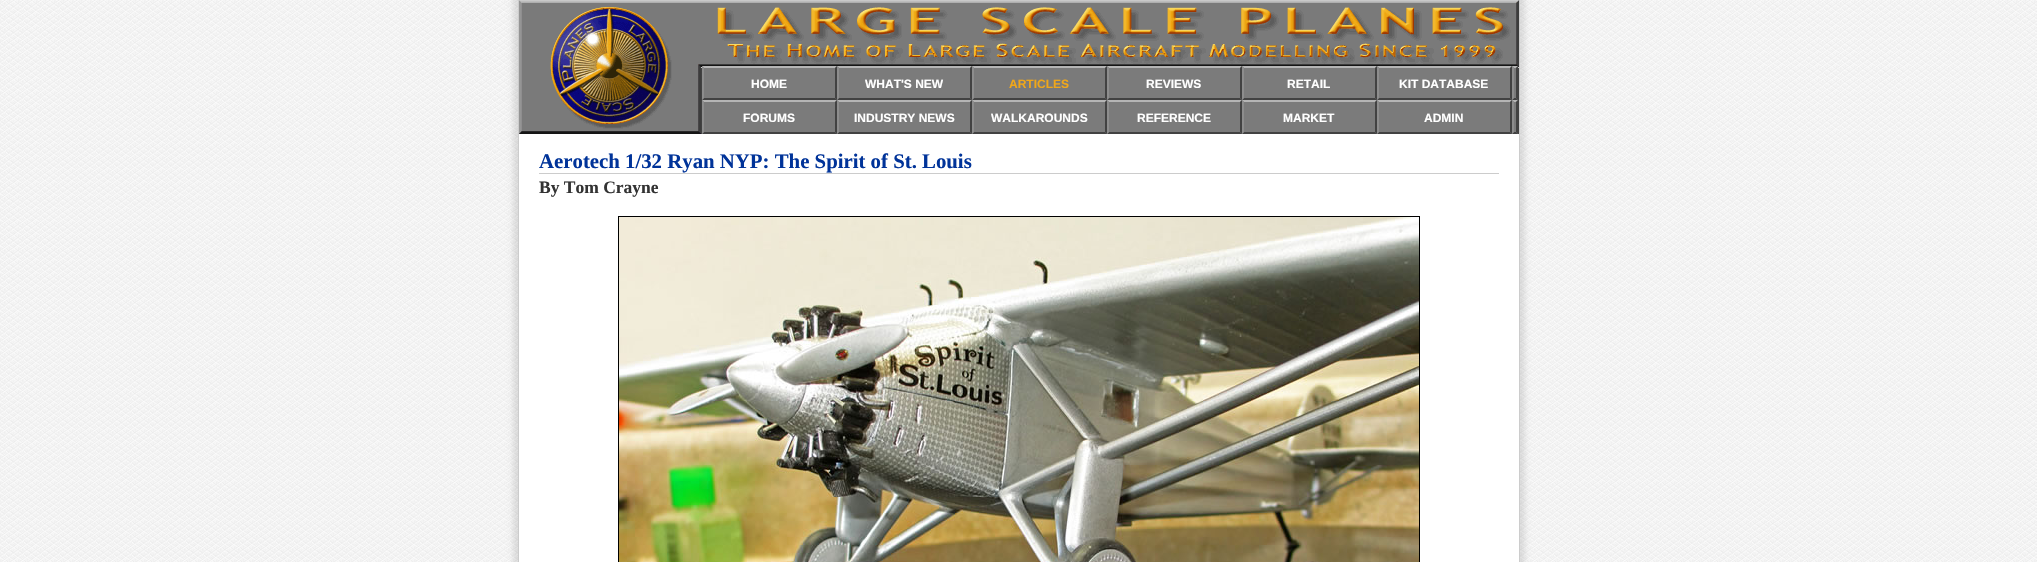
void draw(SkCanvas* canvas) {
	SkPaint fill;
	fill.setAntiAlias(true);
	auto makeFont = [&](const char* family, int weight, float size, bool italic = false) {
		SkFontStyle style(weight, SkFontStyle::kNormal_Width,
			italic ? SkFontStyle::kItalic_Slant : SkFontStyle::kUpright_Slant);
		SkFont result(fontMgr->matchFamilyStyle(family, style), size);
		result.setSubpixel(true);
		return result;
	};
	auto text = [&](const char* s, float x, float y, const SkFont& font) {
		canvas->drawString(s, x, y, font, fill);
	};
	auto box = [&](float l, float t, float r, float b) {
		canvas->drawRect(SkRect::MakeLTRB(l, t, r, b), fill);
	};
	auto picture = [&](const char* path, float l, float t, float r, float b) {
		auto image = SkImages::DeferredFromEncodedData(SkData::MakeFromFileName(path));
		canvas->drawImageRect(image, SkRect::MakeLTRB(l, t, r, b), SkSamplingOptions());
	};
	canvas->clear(0xFFFFFFFF);
	picture("image0.png", 0, 0, 2037, 562);
	fill.setColor(0x1A000000);
	fill.setMaskFilter(SkMaskFilter::MakeBlur(kNormal_SkBlurStyle, 2.5f));
	canvas->drawRect(SkRect::MakeLTRB(513, -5, 1525, 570), fill);
	fill.setMaskFilter(nullptr);
	fill.setColor(0xFFFFFFFF);
	box(519, 134, 1519, 562);
	fill.setColor(0xFFCCCCCC);
	box(1519, 0, 1520, 562);
	box(518, 0, 519, 562);
	fill.setColor(0xFF424242);
	box(701, 68, 1519, 134);
	picture("image1.png", 519, 0, 1519, 134);
	fill.setColor(0xFF7B7B7B);
	box(702, 66, 972, 100);
	fill.setColor(0xFFB5B5B5);
	canvas->drawPath(SkPathBuilder().moveTo(702, 66).lineTo(837, 66).lineTo(835, 68).lineTo(704, 68).close().detach(), fill);
	fill.setColor(0xFF424242);
	canvas->drawPath(SkPathBuilder().moveTo(837, 66).lineTo(837, 100).lineTo(835, 98).lineTo(835, 68).close().detach(), fill);
	canvas->drawPath(SkPathBuilder().moveTo(837, 100).lineTo(702, 100).lineTo(704, 98).lineTo(835, 98).close().detach(), fill);
	fill.setColor(0xFF8D8D8D);
	canvas->drawPath(SkPathBuilder().moveTo(702, 100).lineTo(702, 66).lineTo(704, 68).lineTo(704, 98).close().detach(), fill);
	fill.setColor(0xFFB5B5B5);
	canvas->drawPath(SkPathBuilder().moveTo(837, 66).lineTo(972, 66).lineTo(970, 68).lineTo(839, 68).close().detach(), fill);
	fill.setColor(0xFF424242);
	canvas->drawPath(SkPathBuilder().moveTo(972, 66).lineTo(972, 100).lineTo(970, 98).lineTo(970, 68).close().detach(), fill);
	canvas->drawPath(SkPathBuilder().moveTo(972, 100).lineTo(837, 100).lineTo(839, 98).lineTo(970, 98).close().detach(), fill);
	fill.setColor(0xFF8D8D8D);
	canvas->drawPath(SkPathBuilder().moveTo(837, 100).lineTo(837, 66).lineTo(839, 68).lineTo(839, 98).close().detach(), fill);
	fill.setColor(0xFF7A7A7A);
	box(972, 66, 1107, 100);
	fill.setColor(0xFFB5B5B5);
	canvas->drawPath(SkPathBuilder().moveTo(972, 66).lineTo(1107, 66).lineTo(1105, 68).lineTo(974, 68).close().detach(), fill);
	fill.setColor(0xFF424242);
	canvas->drawPath(SkPathBuilder().moveTo(1107, 66).lineTo(1107, 100).lineTo(1105, 98).lineTo(1105, 68).close().detach(), fill);
	canvas->drawPath(SkPathBuilder().moveTo(1107, 100).lineTo(972, 100).lineTo(974, 98).lineTo(1105, 98).close().detach(), fill);
	fill.setColor(0xFF8D8D8D);
	canvas->drawPath(SkPathBuilder().moveTo(972, 100).lineTo(972, 66).lineTo(974, 68).lineTo(974, 98).close().detach(), fill);
	fill.setColor(0xFF7B7B7B);
	box(1107, 66, 1518, 100);
	fill.setColor(0xFFB5B5B5);
	canvas->drawPath(SkPathBuilder().moveTo(1107, 66).lineTo(1242, 66).lineTo(1240, 68).lineTo(1109, 68).close().detach(), fill);
	fill.setColor(0xFF424242);
	canvas->drawPath(SkPathBuilder().moveTo(1242, 66).lineTo(1242, 100).lineTo(1240, 98).lineTo(1240, 68).close().detach(), fill);
	canvas->drawPath(SkPathBuilder().moveTo(1242, 100).lineTo(1107, 100).lineTo(1109, 98).lineTo(1240, 98).close().detach(), fill);
	fill.setColor(0xFF8D8D8D);
	canvas->drawPath(SkPathBuilder().moveTo(1107, 100).lineTo(1107, 66).lineTo(1109, 68).lineTo(1109, 98).close().detach(), fill);
	fill.setColor(0xFFB5B5B5);
	canvas->drawPath(SkPathBuilder().moveTo(1242, 66).lineTo(1377, 66).lineTo(1375, 68).lineTo(1244, 68).close().detach(), fill);
	fill.setColor(0xFF424242);
	canvas->drawPath(SkPathBuilder().moveTo(1377, 66).lineTo(1377, 100).lineTo(1375, 98).lineTo(1375, 68).close().detach(), fill);
	canvas->drawPath(SkPathBuilder().moveTo(1377, 100).lineTo(1242, 100).lineTo(1244, 98).lineTo(1375, 98).close().detach(), fill);
	fill.setColor(0xFF8D8D8D);
	canvas->drawPath(SkPathBuilder().moveTo(1242, 100).lineTo(1242, 66).lineTo(1244, 68).lineTo(1244, 98).close().detach(), fill);
	fill.setColor(0xFFB5B5B5);
	canvas->drawPath(SkPathBuilder().moveTo(1377, 66).lineTo(1512, 66).lineTo(1510, 68).lineTo(1379, 68).close().detach(), fill);
	fill.setColor(0xFF424242);
	canvas->drawPath(SkPathBuilder().moveTo(1512, 66).lineTo(1512, 100).lineTo(1510, 98).lineTo(1510, 68).close().detach(), fill);
	canvas->drawPath(SkPathBuilder().moveTo(1512, 100).lineTo(1377, 100).lineTo(1379, 98).lineTo(1510, 98).close().detach(), fill);
	fill.setColor(0xFF8D8D8D);
	canvas->drawPath(SkPathBuilder().moveTo(1377, 100).lineTo(1377, 66).lineTo(1379, 68).lineTo(1379, 98).close().detach(), fill);
	fill.setColor(0xFFB5B5B5);
	canvas->drawPath(SkPathBuilder().moveTo(1512, 66).lineTo(1518, 66).lineTo(1516, 68).lineTo(1514, 68).close().detach(), fill);
	fill.setColor(0xFF424242);
	canvas->drawPath(SkPathBuilder().moveTo(1518, 66).lineTo(1518, 100).lineTo(1516, 98).lineTo(1516, 68).close().detach(), fill);
	canvas->drawPath(SkPathBuilder().moveTo(1518, 100).lineTo(1512, 100).lineTo(1514, 98).lineTo(1516, 98).close().detach(), fill);
	fill.setColor(0xFF8D8D8D);
	canvas->drawPath(SkPathBuilder().moveTo(1512, 100).lineTo(1512, 66).lineTo(1514, 68).lineTo(1514, 98).close().detach(), fill);
	fill.setColor(0xFF7B7B7B);
	box(702, 100, 1518, 134);
	fill.setColor(0xFFB5B5B5);
	canvas->drawPath(SkPathBuilder().moveTo(702, 100).lineTo(837, 100).lineTo(835, 102).lineTo(704, 102).close().detach(), fill);
	fill.setColor(0xFF424242);
	canvas->drawPath(SkPathBuilder().moveTo(837, 100).lineTo(837, 134).lineTo(835, 132).lineTo(835, 102).close().detach(), fill);
	canvas->drawPath(SkPathBuilder().moveTo(837, 134).lineTo(702, 134).lineTo(704, 132).lineTo(835, 132).close().detach(), fill);
	fill.setColor(0xFF8D8D8D);
	canvas->drawPath(SkPathBuilder().moveTo(702, 134).lineTo(702, 100).lineTo(704, 102).lineTo(704, 132).close().detach(), fill);
	fill.setColor(0xFFB5B5B5);
	canvas->drawPath(SkPathBuilder().moveTo(837, 100).lineTo(972, 100).lineTo(970, 102).lineTo(839, 102).close().detach(), fill);
	fill.setColor(0xFF424242);
	canvas->drawPath(SkPathBuilder().moveTo(972, 100).lineTo(972, 134).lineTo(970, 132).lineTo(970, 102).close().detach(), fill);
	canvas->drawPath(SkPathBuilder().moveTo(972, 134).lineTo(837, 134).lineTo(839, 132).lineTo(970, 132).close().detach(), fill);
	fill.setColor(0xFF8D8D8D);
	canvas->drawPath(SkPathBuilder().moveTo(837, 134).lineTo(837, 100).lineTo(839, 102).lineTo(839, 132).close().detach(), fill);
	fill.setColor(0xFFB5B5B5);
	canvas->drawPath(SkPathBuilder().moveTo(972, 100).lineTo(1107, 100).lineTo(1105, 102).lineTo(974, 102).close().detach(), fill);
	fill.setColor(0xFF424242);
	canvas->drawPath(SkPathBuilder().moveTo(1107, 100).lineTo(1107, 134).lineTo(1105, 132).lineTo(1105, 102).close().detach(), fill);
	canvas->drawPath(SkPathBuilder().moveTo(1107, 134).lineTo(972, 134).lineTo(974, 132).lineTo(1105, 132).close().detach(), fill);
	fill.setColor(0xFF8D8D8D);
	canvas->drawPath(SkPathBuilder().moveTo(972, 134).lineTo(972, 100).lineTo(974, 102).lineTo(974, 132).close().detach(), fill);
	fill.setColor(0xFFB5B5B5);
	canvas->drawPath(SkPathBuilder().moveTo(1107, 100).lineTo(1242, 100).lineTo(1240, 102).lineTo(1109, 102).close().detach(), fill);
	fill.setColor(0xFF424242);
	canvas->drawPath(SkPathBuilder().moveTo(1242, 100).lineTo(1242, 134).lineTo(1240, 132).lineTo(1240, 102).close().detach(), fill);
	canvas->drawPath(SkPathBuilder().moveTo(1242, 134).lineTo(1107, 134).lineTo(1109, 132).lineTo(1240, 132).close().detach(), fill);
	fill.setColor(0xFF8D8D8D);
	canvas->drawPath(SkPathBuilder().moveTo(1107, 134).lineTo(1107, 100).lineTo(1109, 102).lineTo(1109, 132).close().detach(), fill);
	fill.setColor(0xFFB5B5B5);
	canvas->drawPath(SkPathBuilder().moveTo(1242, 100).lineTo(1377, 100).lineTo(1375, 102).lineTo(1244, 102).close().detach(), fill);
	fill.setColor(0xFF424242);
	canvas->drawPath(SkPathBuilder().moveTo(1377, 100).lineTo(1377, 134).lineTo(1375, 132).lineTo(1375, 102).close().detach(), fill);
	canvas->drawPath(SkPathBuilder().moveTo(1377, 134).lineTo(1242, 134).lineTo(1244, 132).lineTo(1375, 132).close().detach(), fill);
	fill.setColor(0xFF8D8D8D);
	canvas->drawPath(SkPathBuilder().moveTo(1242, 134).lineTo(1242, 100).lineTo(1244, 102).lineTo(1244, 132).close().detach(), fill);
	fill.setColor(0xFFB5B5B5);
	canvas->drawPath(SkPathBuilder().moveTo(1377, 100).lineTo(1512, 100).lineTo(1510, 102).lineTo(1379, 102).close().detach(), fill);
	fill.setColor(0xFF424242);
	canvas->drawPath(SkPathBuilder().moveTo(1512, 100).lineTo(1512, 134).lineTo(1510, 132).lineTo(1510, 102).close().detach(), fill);
	canvas->drawPath(SkPathBuilder().moveTo(1512, 134).lineTo(1377, 134).lineTo(1379, 132).lineTo(1510, 132).close().detach(), fill);
	fill.setColor(0xFF8D8D8D);
	canvas->drawPath(SkPathBuilder().moveTo(1377, 134).lineTo(1377, 100).lineTo(1379, 102).lineTo(1379, 132).close().detach(), fill);
	fill.setColor(0xFFB5B5B5);
	canvas->drawPath(SkPathBuilder().moveTo(1512, 100).lineTo(1518, 100).lineTo(1516, 102).lineTo(1514, 102).close().detach(), fill);
	fill.setColor(0xFF424242);
	canvas->drawPath(SkPathBuilder().moveTo(1518, 100).lineTo(1518, 134).lineTo(1516, 132).lineTo(1516, 102).close().detach(), fill);
	canvas->drawPath(SkPathBuilder().moveTo(1518, 134).lineTo(1512, 134).lineTo(1514, 132).lineTo(1516, 132).close().detach(), fill);
	fill.setColor(0xFF8D8D8D);
	canvas->drawPath(SkPathBuilder().moveTo(1512, 134).lineTo(1512, 100).lineTo(1514, 102).lineTo(1514, 132).close().detach(), fill);
	fill.setColor(0xFFCCCCCC);
	box(539, 173, 1499, 174);
	fill.setStyle(SkPaint::kStroke_Style);
	fill.setStrokeWidth(1);
	fill.setColor(0xFF000000);
	canvas->drawRect(SkRect::MakeLTRB(618.5f, 216.5f, 1419.5f, 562.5f), fill);
	picture("image2.png", 619, 217, 1419, 562);
	auto font1 = makeFont("Liberation Sans", 700, 12);
	fill.setStyle(SkPaint::kFill_Style);
	fill.setColor(0xFFFFFFFF);
	text("HOME", 751, 88, font1);
	text("WHAT'S NEW", 865, 88, font1);
	fill.setColor(0xFFF0A71A);
	text("ARTICLES", 1009, 88, font1);
	fill.setColor(0xFFFFFFFF);
	text("REVIEWS", 1146, 88, font1);
	text("RETAIL", 1287, 88, font1);
	text("KIT DATABASE", 1399, 88, font1);
	text("FORUMS", 743, 122, font1);
	text("INDUSTRY NEWS", 854, 122, font1);
	text("WALKAROUNDS", 991, 122, font1);
	text("REFERENCE", 1137, 122, font1);
	text("MARKET", 1283, 122, font1);
	text("ADMIN", 1424, 122, font1);
	auto font2 = makeFont("Liberation Serif", 700, 20.8f);
	fill.setColor(0xFF003399);
	text("Aerotech 1/32 Ryan NYP: The Spirit of St. Louis", 539, 168, font2);
	auto font3 = makeFont("Liberation Serif", 700, 17.5f);
	fill.setColor(0xFF333333);
	text("By Tom Crayne", 539, 193, font3);
}
